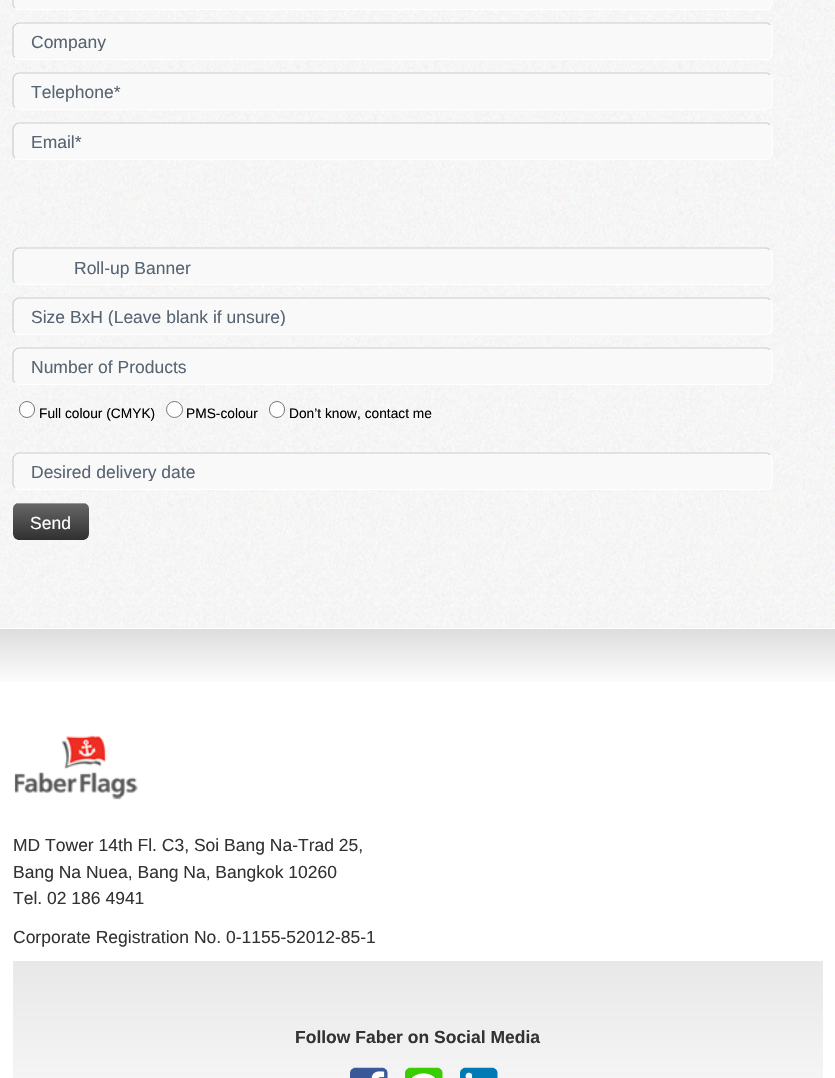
void draw(SkCanvas* canvas) {
	SkPaint fill;
	fill.setAntiAlias(true);
	auto makeFont = [&](const char* family, int weight, float size, bool italic = false) {
		SkFontStyle style(weight, SkFontStyle::kNormal_Width,
			italic ? SkFontStyle::kItalic_Slant : SkFontStyle::kUpright_Slant);
		SkFont result(fontMgr->matchFamilyStyle(family, style), size);
		result.setSubpixel(true);
		return result;
	};
	auto text = [&](const char* s, float x, float y, const SkFont& font) {
		canvas->drawString(s, x, y, font, fill);
	};
	auto box = [&](float l, float t, float r, float b) {
		canvas->drawRect(SkRect::MakeLTRB(l, t, r, b), fill);
	};
	auto roundBox = [&](float l, float t, float r, float b, float radius) {
		canvas->drawRoundRect(SkRect::MakeLTRB(l, t, r, b), radius, radius, fill);
	};
	auto picture = [&](const char* path, float l, float t, float r, float b) {
		auto image = SkImages::DeferredFromEncodedData(SkData::MakeFromFileName(path));
		canvas->drawImageRect(image, SkRect::MakeLTRB(l, t, r, b), SkSamplingOptions());
	};
	canvas->clear(0xFFFFFFFF);
	picture("image0.png", 0, 0, 835, 628);
	fill.setColor(0xFFF9F9F9);
	roundBox(13, -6, 773, 10, 6);
	fill.setStyle(SkPaint::kStroke_Style);
	fill.setStrokeWidth(1.2f);
	fill.setColor(0xFFFFFFFF);
	canvas->drawPath(SkPathBuilder().moveTo(770, -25).cubicTo(771.5f, -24, 772, -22.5f, 772, -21).lineTo(772, 3.5f).cubicTo(772, 5, 771.5f, 6.5f, 770, 7.5f).cubicTo(769, 9, 767.5f, 9.5f, 766, 9.5f).lineTo(19, 9.5f).cubicTo(17.5f, 9.5f, 16, 9, 15, 7.5f).detach(), fill);
	fill.setColor(0xFFCBCED2);
	canvas->drawPath(SkPathBuilder().moveTo(15, 7.5f).cubicTo(13.5f, 6.5f, 13, 5, 13, 4).lineTo(13, -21).cubicTo(13, -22.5f, 13.5f, -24, 15, -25).cubicTo(16, -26.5f, 17.5f, -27, 19, -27).lineTo(766, -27).cubicTo(767.5f, -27, 769, -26.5f, 770, -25).detach(), fill);
	fill.setStyle(SkPaint::kFill_Style);
	fill.setColor(0xFFF9F9F9);
	roundBox(13, 23, 773, 60, 6);
	fill.setStyle(SkPaint::kStroke_Style);
	fill.setColor(0xFFFFFFFF);
	canvas->drawPath(SkPathBuilder().moveTo(770, 25).cubicTo(771.5f, 26, 772, 27.5f, 772, 29).lineTo(772, 54).cubicTo(772, 55, 771.5f, 56.5f, 770, 57.5f).cubicTo(769, 59, 767.5f, 59.5f, 766, 59.5f).lineTo(19, 59.5f).cubicTo(17.5f, 59.5f, 16, 59, 15, 57.5f).detach(), fill);
	fill.setColor(0xFFCBCED2);
	canvas->drawPath(SkPathBuilder().moveTo(15, 57.5f).cubicTo(13.5f, 56.5f, 13, 55, 13, 54).lineTo(13, 29).cubicTo(13, 27.5f, 13.5f, 26, 15, 25).cubicTo(16, 23.5f, 17.5f, 23, 19, 23).lineTo(766, 23).cubicTo(767.5f, 23, 769, 23.5f, 770, 25).detach(), fill);
	fill.setStyle(SkPaint::kFill_Style);
	fill.setColor(0xFFF9F9F9);
	roundBox(13, 73, 773, 110, 6);
	fill.setStyle(SkPaint::kStroke_Style);
	fill.setColor(0xFFFFFFFF);
	canvas->drawPath(SkPathBuilder().moveTo(770, 75).cubicTo(771.5f, 76, 772, 77.5f, 772, 79).lineTo(772, 104).cubicTo(772, 105, 771.5f, 106.5f, 770, 107.5f).cubicTo(769, 109, 767.5f, 109.5f, 766, 109.5f).lineTo(19, 109.5f).cubicTo(17.5f, 109.5f, 16, 109, 15, 107.5f).detach(), fill);
	fill.setColor(0xFFCBCED2);
	canvas->drawPath(SkPathBuilder().moveTo(15, 107.5f).cubicTo(13.5f, 106.5f, 13, 105, 13, 104).lineTo(13, 79).cubicTo(13, 77.5f, 13.5f, 76, 15, 75).cubicTo(16, 73.5f, 17.5f, 73, 19, 73).lineTo(766, 73).cubicTo(767.5f, 73, 769, 73.5f, 770, 75).detach(), fill);
	fill.setStyle(SkPaint::kFill_Style);
	fill.setColor(0xFFF9F9F9);
	roundBox(13, 123, 773, 160, 6);
	fill.setStyle(SkPaint::kStroke_Style);
	fill.setColor(0xFFFFFFFF);
	canvas->drawPath(SkPathBuilder().moveTo(770, 125).cubicTo(771.5f, 126, 772, 127.5f, 772, 129).lineTo(772, 154).cubicTo(772, 155, 771.5f, 156.5f, 770, 157.5f).cubicTo(769, 159, 767.5f, 159.5f, 766, 159.5f).lineTo(19, 159.5f).cubicTo(17.5f, 159.5f, 16, 159, 15, 157.5f).detach(), fill);
	fill.setColor(0xFFCBCED2);
	canvas->drawPath(SkPathBuilder().moveTo(15, 157.5f).cubicTo(13.5f, 156.5f, 13, 155, 13, 154).lineTo(13, 129).cubicTo(13, 127.5f, 13.5f, 126, 15, 125).cubicTo(16, 123.5f, 17.5f, 123, 19, 123).lineTo(766, 123).cubicTo(767.5f, 123, 769, 123.5f, 770, 125).detach(), fill);
	fill.setStyle(SkPaint::kFill_Style);
	fill.setColor(0xFFF9F9F9);
	roundBox(13, 248, 773, 285, 6);
	fill.setStyle(SkPaint::kStroke_Style);
	fill.setColor(0xFFFFFFFF);
	canvas->drawPath(SkPathBuilder().moveTo(770, 250).cubicTo(771.5f, 251, 772, 252.5f, 772, 254).lineTo(772, 279).cubicTo(772, 280, 771.5f, 281.5f, 770, 282.5f).cubicTo(769, 284, 767.5f, 284.5f, 766, 284.5f).lineTo(19, 284.5f).cubicTo(17.5f, 284.5f, 16, 284, 15, 282.5f).detach(), fill);
	fill.setColor(0xFFCBCED2);
	canvas->drawPath(SkPathBuilder().moveTo(15, 282.5f).cubicTo(13.5f, 281.5f, 13, 280, 13, 279).lineTo(13, 254).cubicTo(13, 252.5f, 13.5f, 251, 15, 250).cubicTo(16, 248.5f, 17.5f, 248, 19, 248).lineTo(766, 248).cubicTo(767.5f, 248, 769, 248.5f, 770, 250).detach(), fill);
	fill.setStyle(SkPaint::kFill_Style);
	fill.setColor(0xFFF9F9F9);
	roundBox(13, 298, 773, 335, 6);
	fill.setStyle(SkPaint::kStroke_Style);
	fill.setColor(0xFFFFFFFF);
	canvas->drawPath(SkPathBuilder().moveTo(770, 300).cubicTo(771.5f, 301, 772, 302.5f, 772, 304).lineTo(772, 329).cubicTo(772, 330, 771.5f, 331.5f, 770, 332.5f).cubicTo(769, 334, 767.5f, 334.5f, 766, 334.5f).lineTo(19, 334.5f).cubicTo(17.5f, 334.5f, 16, 334, 15, 332.5f).detach(), fill);
	fill.setColor(0xFFCBCED2);
	canvas->drawPath(SkPathBuilder().moveTo(15, 332.5f).cubicTo(13.5f, 331.5f, 13, 330, 13, 329).lineTo(13, 304).cubicTo(13, 302.5f, 13.5f, 301, 15, 300).cubicTo(16, 298.5f, 17.5f, 298, 19, 298).lineTo(766, 298).cubicTo(767.5f, 298, 769, 298.5f, 770, 300).detach(), fill);
	fill.setStyle(SkPaint::kFill_Style);
	fill.setColor(0xFFF9F9F9);
	roundBox(13, 348, 773, 385, 6);
	fill.setStyle(SkPaint::kStroke_Style);
	fill.setColor(0xFFFFFFFF);
	canvas->drawPath(SkPathBuilder().moveTo(770, 350).cubicTo(771.5f, 351, 772, 352.5f, 772, 354).lineTo(772, 379).cubicTo(772, 380, 771.5f, 381.5f, 770, 382.5f).cubicTo(769, 384, 767.5f, 384.5f, 766, 384.5f).lineTo(19, 384.5f).cubicTo(17.5f, 384.5f, 16, 384, 15, 382.5f).detach(), fill);
	fill.setColor(0xFFCBCED2);
	canvas->drawPath(SkPathBuilder().moveTo(15, 382.5f).cubicTo(13.5f, 381.5f, 13, 380, 13, 379).lineTo(13, 354).cubicTo(13, 352.5f, 13.5f, 351, 15, 350).cubicTo(16, 348.5f, 17.5f, 348, 19, 348).lineTo(766, 348).cubicTo(767.5f, 348, 769, 348.5f, 770, 350).detach(), fill);
	fill.setStyle(SkPaint::kFill_Style);
	fill.setColor(0xFFFFFFFF);
	canvas->drawRoundRect(SkRect::MakeLTRB(19.5f, 401.5f, 34.5f, 417.5f), 7.5f, 7.5f, fill);
	fill.setStyle(SkPaint::kStroke_Style);
	fill.setStrokeWidth(1);
	fill.setColor(0xFF767676);
	canvas->drawRoundRect(SkRect::MakeLTRB(19.5f, 401.5f, 34.5f, 417.5f), 7.5f, 7.5f, fill);
	fill.setStyle(SkPaint::kFill_Style);
	fill.setColor(0xFFFFFFFF);
	canvas->drawCircle(174.5f, 409.5f, 8, fill);
	fill.setStyle(SkPaint::kStroke_Style);
	fill.setColor(0xFF767676);
	canvas->drawCircle(174.5f, 409.5f, 8, fill);
	fill.setStyle(SkPaint::kFill_Style);
	fill.setColor(0xFFFFFFFF);
	canvas->drawRoundRect(SkRect::MakeLTRB(269.5f, 401.5f, 284.5f, 417.5f), 7.5f, 7.5f, fill);
	fill.setStyle(SkPaint::kStroke_Style);
	fill.setColor(0xFF767676);
	canvas->drawRoundRect(SkRect::MakeLTRB(269.5f, 401.5f, 284.5f, 417.5f), 7.5f, 7.5f, fill);
	fill.setStyle(SkPaint::kFill_Style);
	fill.setColor(0xFFF9F9F9);
	roundBox(13, 453, 773, 490, 6);
	fill.setStyle(SkPaint::kStroke_Style);
	fill.setStrokeWidth(1.2f);
	fill.setColor(0xFFFFFFFF);
	canvas->drawPath(SkPathBuilder().moveTo(770, 455).cubicTo(771.5f, 456, 772, 457.5f, 772, 459).lineTo(772, 484).cubicTo(772, 485, 771.5f, 486.5f, 770, 487.5f).cubicTo(769, 489, 767.5f, 489.5f, 766, 489.5f).lineTo(19, 489.5f).cubicTo(17.5f, 489.5f, 16, 489, 15, 487.5f).detach(), fill);
	fill.setColor(0xFFCBCED2);
	canvas->drawPath(SkPathBuilder().moveTo(15, 487.5f).cubicTo(13.5f, 486.5f, 13, 485, 13, 484).lineTo(13, 459).cubicTo(13, 457.5f, 13.5f, 456, 15, 455).cubicTo(16, 453.5f, 17.5f, 453, 19, 453).lineTo(766, 453).cubicTo(767.5f, 453, 769, 453.5f, 770, 455).detach(), fill);
	canvas->save();
	canvas->clipPath(SkPathBuilder().moveTo(19, 503).lineTo(83, 503).cubicTo(86.5f, 503, 89, 505.5f, 89, 509).lineTo(89, 534).cubicTo(89, 537.5f, 86.5f, 540, 83, 540).lineTo(19, 540).cubicTo(15.5f, 540, 13, 537.5f, 13, 534).lineTo(13, 509).cubicTo(13, 505.5f, 15.5f, 503, 19, 503).close().detach(), true);
	fill.setStyle(SkPaint::kFill_Style);
	{
		const SkColor colors[] = {0xFF666666, 0xFF303030};
		const float stops[] = {0, 1};
		const SkPoint ends[] = {{51, 504}, {51, 540}};
		fill.setShader(SkGradientShader::MakeLinear(ends, colors, stops, 2, SkTileMode::kClamp));
		fill.setAlpha(255);
	}
	canvas->drawPath(SkPathBuilder().moveTo(13, 504).lineTo(89, 504).lineTo(89, 534).cubicTo(89, 537.5f, 86.5f, 540, 83, 540).lineTo(19, 540).cubicTo(15.5f, 540, 13, 537.5f, 13, 534).close().detach(), fill);
	canvas->restore();
	fill.setShader(nullptr);
	fill.setColor(0xFF999999);
	box(16, 503, 86, 504);
	{
		const SkColor colors[] = {0xFFDDDDDD, 0xFFFFFFFF};
		const float stops[] = {0, 0.1f};
		const SkPoint ends[] = {{418, 629}, {418, 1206}};
		fill.setShader(SkGradientShader::MakeLinear(ends, colors, stops, 2, SkTileMode::kClamp));
		fill.setAlpha(255);
	}
	box(0, 629, 835, 682);
	picture("image1.png", 14, 735, 138, 800);
	{
		const SkColor colors[] = {0xFFE8E8E8, 0xFFFFFFFF};
		const float stops[] = {0, 1};
		const SkPoint ends[] = {{418, 961}, {418, 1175}};
		fill.setShader(SkGradientShader::MakeLinear(ends, colors, stops, 2, SkTileMode::kClamp));
		fill.setAlpha(255);
	}
	box(13, 961, 823, 1078);
	picture("image2.png", 350, 1067, 388, 1078);
	picture("image3.png", 405, 1067, 443, 1078);
	picture("image4.png", 460, 1067, 498, 1078);
	canvas->save();
	canvas->clipRect(SkRect::MakeLTRB(31, 31, 754, 51));
	auto font1 = makeFont("Liberation Sans", 400, 17.5f);
	fill.setShader(nullptr);
	fill.setColor(0xFF576472);
	text("Company", 31, 48, font1);
	canvas->restore();
	text("Telephone*", 31, 98, font1);
	text("Email*", 31, 148, font1);
	text("Roll-up Banner", 74, 274, font1);
	canvas->save();
	canvas->clipRect(SkRect::MakeLTRB(31, 306, 754, 326));
	text("Size BxH (Leave blank if unsure)", 31, 323, font1);
	canvas->restore();
	text("Number of Products", 31, 373, font1);
	auto font2 = makeFont("Liberation Sans", 400, 13.75f);
	fill.setColor(0xFF000000);
	text("Full colour (CMYK)", 39, 418, font2);
	text("PMS-colour", 186, 418, font2);
	text("Don’t know, contact me", 289, 418, font2);
	canvas->save();
	canvas->clipRect(SkRect::MakeLTRB(31, 461, 754, 481));
	fill.setColor(0xFF576472);
	text("Desired delivery date", 31, 478, font1);
	canvas->restore();
	fill.setColor(0xFFFFFFFF);
	text("Send", 30, 529, font1);
	fill.setColor(0xFF333333);
	text("MD Tower 14th Fl. C3, Soi Bang Na-Trad 25,", 13, 851, font1);
	text("Bang Na Nuea, Bang Na, Bangkok 10260", 13, 878, font1);
	text("Tel. 02 186 4941", 13, 904, font1);
	text("Corporate Registration No. 0-1155-52012-85-1", 13, 943, font1);
	auto font3 = makeFont("Liberation Sans", 700, 17.5f);
	text("Follow Faber on Social Media", 295, 1043, font3);
}
